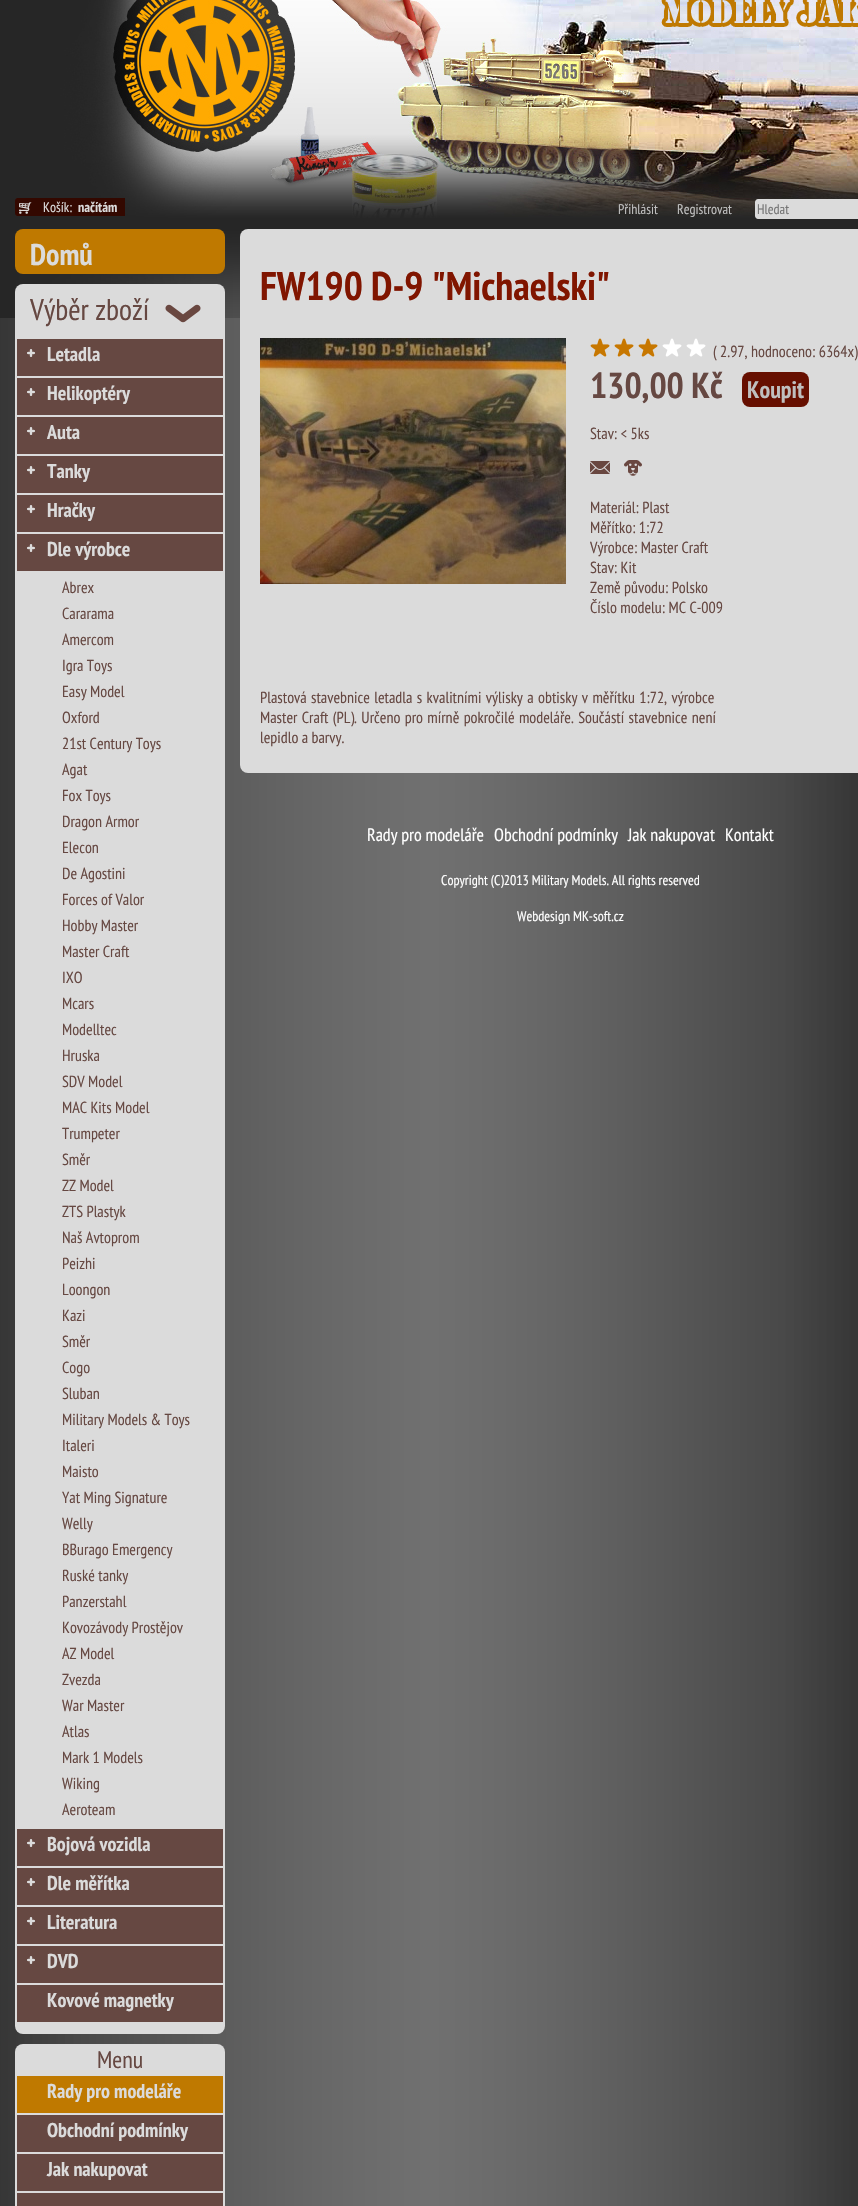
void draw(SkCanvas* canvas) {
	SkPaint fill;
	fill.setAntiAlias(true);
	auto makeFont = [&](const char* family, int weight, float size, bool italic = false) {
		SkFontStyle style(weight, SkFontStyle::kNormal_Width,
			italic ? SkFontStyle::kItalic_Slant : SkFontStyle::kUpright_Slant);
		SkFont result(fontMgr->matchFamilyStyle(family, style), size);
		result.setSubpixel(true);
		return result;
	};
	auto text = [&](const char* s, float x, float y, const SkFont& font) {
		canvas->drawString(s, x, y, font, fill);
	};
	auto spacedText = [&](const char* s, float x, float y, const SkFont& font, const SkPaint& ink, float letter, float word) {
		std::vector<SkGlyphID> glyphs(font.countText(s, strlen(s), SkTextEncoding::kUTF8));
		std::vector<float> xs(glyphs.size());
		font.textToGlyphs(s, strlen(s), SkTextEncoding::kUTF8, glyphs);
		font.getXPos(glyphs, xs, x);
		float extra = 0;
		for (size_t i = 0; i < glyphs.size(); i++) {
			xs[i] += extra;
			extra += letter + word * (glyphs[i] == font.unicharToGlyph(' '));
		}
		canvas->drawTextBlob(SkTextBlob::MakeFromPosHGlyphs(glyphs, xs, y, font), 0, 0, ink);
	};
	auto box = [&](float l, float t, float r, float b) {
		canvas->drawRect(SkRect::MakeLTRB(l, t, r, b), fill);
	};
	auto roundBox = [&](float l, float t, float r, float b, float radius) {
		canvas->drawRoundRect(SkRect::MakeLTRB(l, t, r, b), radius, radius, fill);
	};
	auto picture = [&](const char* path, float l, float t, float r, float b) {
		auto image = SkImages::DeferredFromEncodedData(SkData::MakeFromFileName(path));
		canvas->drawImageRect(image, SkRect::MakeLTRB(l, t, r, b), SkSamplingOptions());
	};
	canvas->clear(0xFFFFFFFF);
	picture("image0.png", 0, 318, 858, 2206);
	picture("image1.png", 0, 0, 858, 318);
	fill.setColor(0xFF330800);
	roundBox(15, 198, 125, 216, 3);
	box(17, 198, 125, 216);
	picture("image2.png", 19, 202, 32, 214);
	fill.setColor(0xFFDBDBDB);
	canvas->drawPath(SkPathBuilder().moveTo(758, 199).lineTo(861, 199).lineTo(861, 219).lineTo(758, 219).cubicTo(756.5f, 219, 755, 217.5f, 755, 216).lineTo(755, 202).cubicTo(755, 200.5f, 756.5f, 199, 758, 199).close().detach(), fill);
	fill.setColor(0xFFBF7900);
	roundBox(15, 229, 225, 274, 8);
	fill.setColor(0xFFDBDBDB);
	roundBox(15, 284, 225, 2034, 8);
	picture("image3.png", 165, 304, 201, 323);
	fill.setColor(0xFF664842);
	box(17, 339, 223, 376);
	picture("image4.png", 27, 349, 35, 357);
	box(17, 378, 223, 415);
	picture("image4.png", 27, 388, 35, 396);
	box(17, 417, 223, 454);
	picture("image4.png", 27, 427, 35, 435);
	box(17, 456, 223, 493);
	picture("image4.png", 27, 466, 35, 474);
	box(17, 495, 223, 532);
	picture("image4.png", 27, 505, 35, 513);
	box(17, 534, 223, 571);
	picture("image4.png", 27, 544, 35, 552);
	box(17, 1829, 223, 1866);
	picture("image4.png", 27, 1839, 35, 1847);
	box(17, 1868, 223, 1905);
	picture("image4.png", 27, 1878, 35, 1886);
	box(17, 1907, 223, 1944);
	picture("image4.png", 27, 1917, 35, 1925);
	box(17, 1946, 223, 1983);
	picture("image4.png", 27, 1956, 35, 1964);
	box(17, 1985, 223, 2022);
	fill.setColor(0xFFDBDBDB);
	roundBox(15, 2044, 225, 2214, 8);
	fill.setColor(0xFFBF7900);
	box(17, 2076, 223, 2113);
	fill.setColor(0xFF664842);
	box(17, 2115, 223, 2152);
	box(17, 2154, 223, 2191);
	box(17, 2193, 223, 2206);
	fill.setColor(0xFFDBDBDB);
	roundBox(240, 229, 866, 773, 8);
	picture("image5.png", 260, 338, 566, 584);
	picture("image6.png", 590, 338, 610, 357);
	picture("image6.png", 614, 338, 634, 357);
	picture("image6.png", 638, 338, 658, 357);
	picture("image7.png", 662, 338, 682, 357);
	picture("image7.png", 686, 338, 706, 357);
	fill.setColor(0xFF660F00);
	roundBox(742, 372, 809, 407, 8);
	picture("image8.png", 590, 461, 610, 474);
	picture("image9.png", 624, 460, 642, 476);
	auto font1 = makeFont("PT Sans Narrow", 400, 14);
	fill.setColor(0xFFDBDBDB);
	text("Košík:", 43, 212, font1);
	auto font2 = makeFont("PT Sans Narrow", 700, 14);
	text("načítám", 78, 212, font2);
	fill.setColor(0xFFBFBFBF);
	text("Přihlásit", 618, 214, font1);
	text("Registrovat", 677, 214, font1);
	fill.setColor(0xFF757575);
	text("Hledat", 757, 214, font1);
	auto font3 = makeFont("PT Sans Narrow", 700, 30);
	fill.setColor(0xFFDBDBDB);
	text("Domů", 30, 265, font3);
	auto font4 = makeFont("PT Sans Narrow", 400, 30);
	fill.setColor(0xFF664842);
	text("Výběr zboží", 30, 320, font4);
	auto font5 = makeFont("PT Sans Narrow", 700, 20);
	fill.setColor(0xFFDBDBDB);
	text("Letadla", 47, 361, font5);
	text("Helikoptéry", 47, 400, font5);
	text("Auta", 47, 439, font5);
	text("Tanky", 47, 478, font5);
	text("Hračky", 47, 517, font5);
	text("Dle výrobce", 47, 556, font5);
	auto font6 = makeFont("PT Sans Narrow", 400, 16);
	fill.setColor(0xFF664842);
	text("Abrex", 62, 593, font6);
	text("Cararama", 62, 619, font6);
	text("Amercom", 62, 645, font6);
	text("Igra Toys", 62, 671, font6);
	text("Easy Model", 62, 697, font6);
	text("Oxford", 62, 723, font6);
	text("21st Century Toys", 62, 749, font6);
	text("Agat", 62, 775, font6);
	text("Fox Toys", 62, 801, font6);
	text("Dragon Armor", 62, 827, font6);
	text("Elecon", 62, 853, font6);
	text("De Agostini", 62, 879, font6);
	text("Forces of Valor", 62, 905, font6);
	text("Hobby Master", 62, 931, font6);
	text("Master Craft", 62, 957, font6);
	text("IXO", 62, 983, font6);
	text("Mcars", 62, 1009, font6);
	text("Modelltec", 62, 1035, font6);
	text("Hruska", 62, 1061, font6);
	text("SDV Model", 62, 1087, font6);
	text("MAC Kits Model", 62, 1113, font6);
	text("Trumpeter", 62, 1139, font6);
	text("Směr", 62, 1165, font6);
	text("ZZ Model", 62, 1191, font6);
	text("ZTS Plastyk", 62, 1217, font6);
	text("Naš Avtoprom", 62, 1243, font6);
	text("Peizhi", 62, 1269, font6);
	text("Loongon", 62, 1295, font6);
	text("Kazi", 62, 1321, font6);
	text("Směr", 62, 1347, font6);
	text("Cogo", 62, 1373, font6);
	text("Sluban", 62, 1399, font6);
	text("Military Models & Toys", 62, 1425, font6);
	text("Italeri", 62, 1451, font6);
	text("Maisto", 62, 1477, font6);
	text("Yat Ming Signature", 62, 1503, font6);
	text("Welly", 62, 1529, font6);
	text("BBurago Emergency", 62, 1555, font6);
	text("Ruské tanky", 62, 1581, font6);
	text("Panzerstahl", 62, 1607, font6);
	text("Kovozávody Prostějov", 62, 1633, font6);
	text("AZ Model", 62, 1659, font6);
	text("Zvezda", 62, 1685, font6);
	text("War Master", 62, 1711, font6);
	text("Atlas", 62, 1737, font6);
	text("Mark 1 Models", 62, 1763, font6);
	text("Wiking", 62, 1789, font6);
	text("Aeroteam", 62, 1815, font6);
	fill.setColor(0xFFDBDBDB);
	text("Bojová vozidla", 47, 1851, font5);
	text("Dle měřítka", 47, 1890, font5);
	text("Literatura", 47, 1929, font5);
	text("DVD", 47, 1968, font5);
	text("Kovové magnetky", 47, 2007, font5);
	auto font7 = makeFont("PT Sans Narrow", 400, 24);
	fill.setColor(0xFF664842);
	text("Menu", 97, 2068, font7);
	fill.setColor(0xFFDBDBDB);
	text("Rady pro modeláře", 47, 2098, font5);
	text("Obchodní podmínky", 47, 2137, font5);
	text("Jak nakupovat", 47, 2176, font5);
	auto font8 = makeFont("PT Sans Narrow", 700, 40);
	fill.setColor(0xFF801500);
	text("FW190 D-9 \"Michaelski\"", 260, 300, font8);
	fill.setColor(0xFF664842);
	text("( 2.97, hodnoceno: 6364x)", 713, 357, font6);
	auto font9 = makeFont("PT Sans Narrow", 700, 36);
	text("130,00 Kč", 590, 398, font9);
	auto font10 = makeFont("PT Sans Narrow", 700, 24);
	fill.setColor(0xFFBFBFBF);
	text("Koupit", 747, 398, font10);
	fill.setColor(0xFF664842);
	text("Stav: < 5ks", 590, 439, font6);
	text("Materiál: Plast", 590, 513, font6);
	text("Měřítko: 1:72", 590, 533, font6);
	text("Výrobce: Master Craft", 590, 553, font6);
	text("Stav: Kit", 590, 573, font6);
	text("Země původu: Polsko", 590, 593, font6);
	text("Číslo modelu: MC C-009", 590, 613, font6);
	spacedText("Plastová stavebnice letadla s kvalitními výlisky a obtisky v měřítku 1:72, výrobce", 260, 703, font6, fill, 0, 1);
	spacedText("Master Craft (PL). Určeno pro mírně pokročilé modeláře. Součástí stavebnice není", 260, 723, font6, fill, 0, 1);
	text("lepidlo a barvy.", 260, 743, font6);
	auto font11 = makeFont("PT Sans Narrow", 400, 18);
	fill.setColor(0xFFFFFFFF);
	text("Rady pro modeláře", 367, 841, font11);
	text("Obchodní podmínky", 494, 841, font11);
	text("Jak nakupovat", 628, 841, font11);
	text("Kontakt", 725, 841, font11);
	text("Copyright (C)2013 Military Models. All rights reserved", 441, 885, font1);
	text("Webdesign MK-soft.cz", 517, 921, font1);
}
